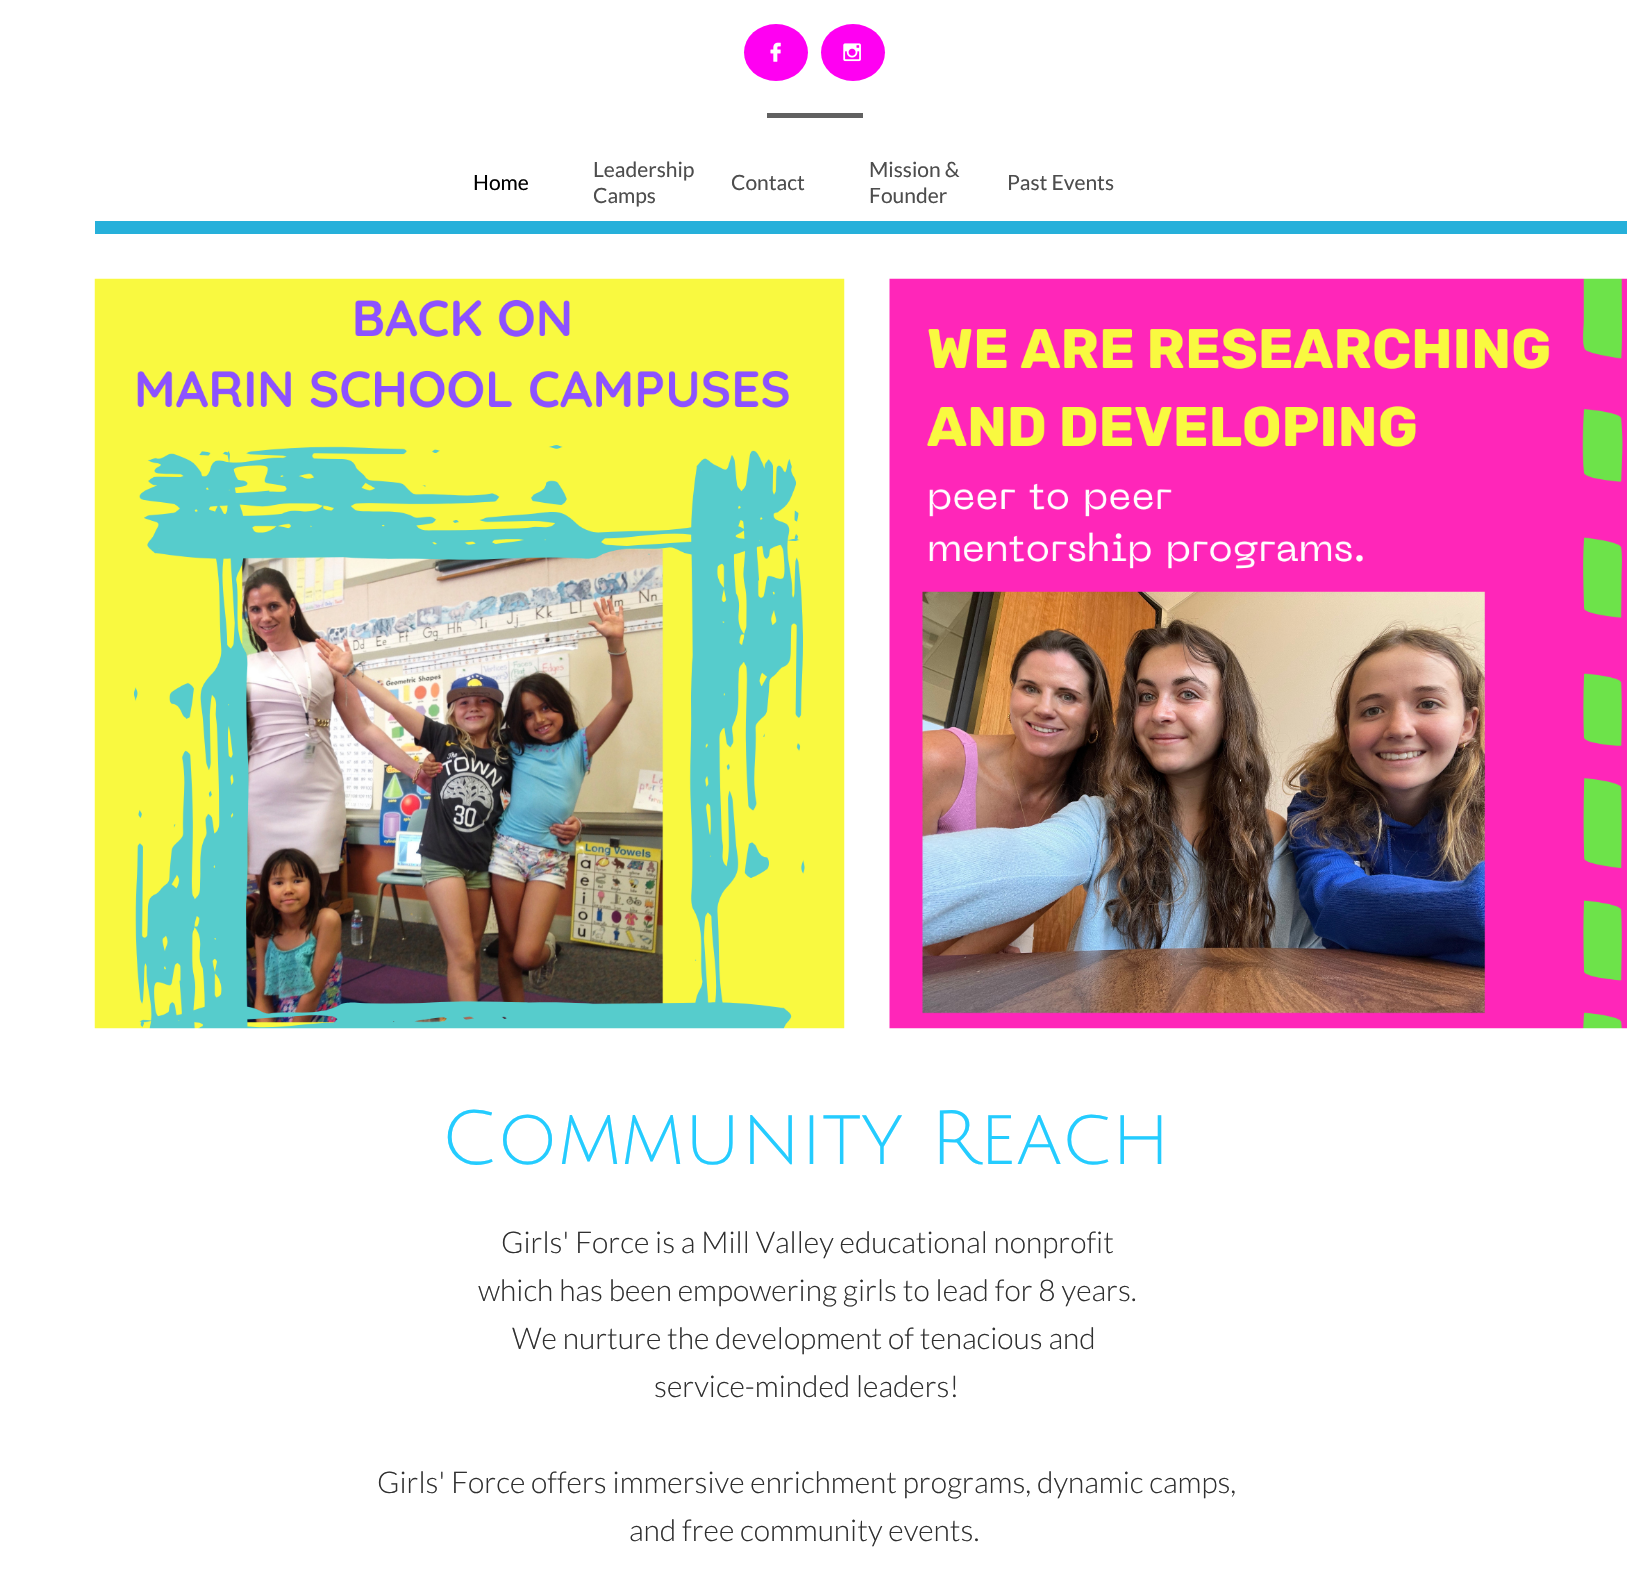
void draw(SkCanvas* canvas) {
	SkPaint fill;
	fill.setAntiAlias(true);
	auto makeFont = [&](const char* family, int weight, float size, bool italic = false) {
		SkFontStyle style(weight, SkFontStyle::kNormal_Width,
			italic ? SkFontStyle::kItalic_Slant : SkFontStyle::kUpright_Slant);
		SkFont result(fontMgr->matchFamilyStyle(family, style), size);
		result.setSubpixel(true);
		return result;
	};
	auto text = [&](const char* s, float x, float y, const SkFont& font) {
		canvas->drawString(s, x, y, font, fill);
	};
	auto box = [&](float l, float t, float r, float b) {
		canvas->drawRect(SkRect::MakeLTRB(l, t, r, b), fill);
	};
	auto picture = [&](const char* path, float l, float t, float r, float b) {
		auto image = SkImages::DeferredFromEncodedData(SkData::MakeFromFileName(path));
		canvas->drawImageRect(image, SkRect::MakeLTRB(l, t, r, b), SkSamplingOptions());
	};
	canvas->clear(0xFFFFFFFF);
	fill.setColor(0xFFFF00F2);
	canvas->drawOval(SkRect::MakeLTRB(744, 24, 808, 81), fill);
	picture("image0.png", 770, 42, 781, 62);
	canvas->drawOval(SkRect::MakeLTRB(821, 24, 885, 81), fill);
	picture("image1.png", 843, 43, 861, 62);
	fill.setColor(0xFF616161);
	box(767, 113, 863, 118);
	fill.setColor(0xFF26B0DA);
	box(95, 221, 1627, 234);
	picture("image2.png", 94, 278, 845, 1029);
	picture("image3.png", 889, 278, 1627, 1029);
	auto font1 = makeFont("Lato", 400, 21);
	fill.setColor(0xFF000000);
	text("Home", 473, 190, font1);
	fill.setColor(0xFF4D4D4D);
	text("Leadership", 593, 177, font1);
	text("Camps", 593, 203, font1);
	text("Contact", 731, 190, font1);
	text("Mission &", 869, 177, font1);
	text("Founder", 869, 203, font1);
	text("Past Events", 1007, 190, font1);
	auto font2 = makeFont("Julius Sans One", 400, 75);
	fill.setColor(0xFF24CCFF);
	text("Community Reach", 441, 1164, font2);
	auto font3 = makeFont("Lato", 300, 30);
	fill.setColor(0xFF303030);
	text("Girls' Force is a Mill Valley educational nonprofit", 501, 1253, font3);
	text("which has been empowering girls to lead for 8 years.", 478, 1301, font3);
	text("We nurture the development of tenacious and", 512, 1349, font3);
	text("service-minded leaders!", 654, 1397, font3);
	text("Girls' Force offers immersive enrichment programs, dynamic camps,", 377, 1493, font3);
	text("and free community events.", 629, 1541, font3);
}
